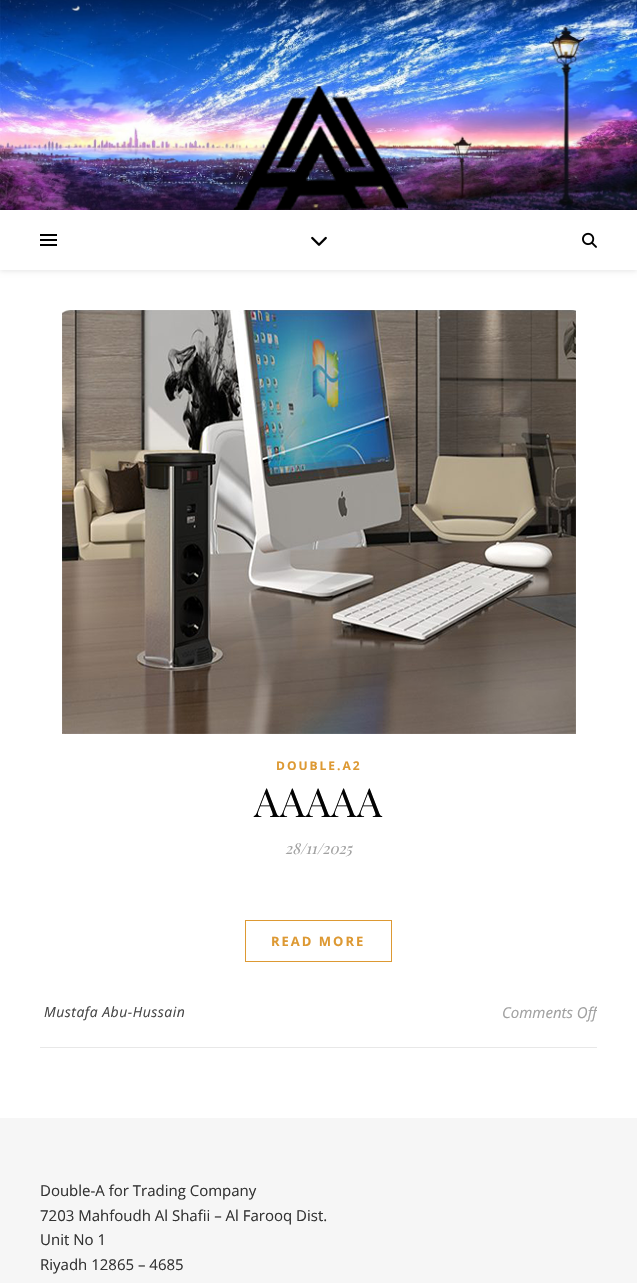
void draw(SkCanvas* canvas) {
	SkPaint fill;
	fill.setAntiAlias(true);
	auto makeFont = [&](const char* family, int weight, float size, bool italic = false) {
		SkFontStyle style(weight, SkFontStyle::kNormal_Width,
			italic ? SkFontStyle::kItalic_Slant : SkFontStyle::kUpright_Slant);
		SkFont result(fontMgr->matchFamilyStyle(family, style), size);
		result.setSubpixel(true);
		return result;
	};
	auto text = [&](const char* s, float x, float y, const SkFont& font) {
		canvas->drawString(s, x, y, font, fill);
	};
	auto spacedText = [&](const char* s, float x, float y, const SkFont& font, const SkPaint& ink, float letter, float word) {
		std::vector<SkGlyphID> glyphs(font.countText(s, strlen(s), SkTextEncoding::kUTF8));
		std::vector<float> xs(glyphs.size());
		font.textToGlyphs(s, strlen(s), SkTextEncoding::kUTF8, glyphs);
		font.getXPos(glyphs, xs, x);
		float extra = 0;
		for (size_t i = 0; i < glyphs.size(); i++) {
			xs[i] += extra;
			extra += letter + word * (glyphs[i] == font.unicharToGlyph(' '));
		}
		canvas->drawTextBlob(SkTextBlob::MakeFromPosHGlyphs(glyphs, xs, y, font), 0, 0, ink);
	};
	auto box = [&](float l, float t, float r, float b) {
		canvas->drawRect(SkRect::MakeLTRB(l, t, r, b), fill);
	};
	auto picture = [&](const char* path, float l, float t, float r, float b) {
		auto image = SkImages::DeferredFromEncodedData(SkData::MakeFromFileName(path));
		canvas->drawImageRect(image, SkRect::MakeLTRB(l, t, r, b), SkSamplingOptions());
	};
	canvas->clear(0xFFFFFFFF);
	picture("image0.png", 0, 0, 637, 210);
	picture("image1.png", 233, 86, 408, 210);
	canvas->save();
	canvas->clipPath(SkPathBuilder(SkPathFillType::kEvenOdd).moveTo(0, 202).lineTo(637, 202).lineTo(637, 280).lineTo(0, 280).close().moveTo(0, 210).lineTo(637, 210).lineTo(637, 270).lineTo(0, 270).close().detach(), true);
	fill.setColor(0x1A000000);
	fill.setMaskFilter(SkMaskFilter::MakeBlur(kNormal_SkBlurStyle, 2.5f));
	canvas->drawRect(SkRect::MakeLTRB(0, 211, 637, 271), fill);
	fill.setMaskFilter(nullptr);
	canvas->restore();
	fill.setColor(0xFF000000);
	box(40, 234, 57, 236);
	box(40, 239, 57, 241);
	box(40, 244, 57, 246);
	picture("image2.png", 311, 236, 327, 246);
	picture("image3.png", 582, 232, 597, 248);
	picture("image4.png", 62, 310, 576, 734);
	fill.setStyle(SkPaint::kStroke_Style);
	fill.setStrokeWidth(1);
	fill.setColor(0xFFDD9933);
	canvas->drawRect(SkRect::MakeLTRB(245.5f, 920.5f, 391.5f, 961.5f), fill);
	fill.setStyle(SkPaint::kFill_Style);
	fill.setColor(0xFFE8E8E8);
	box(40, 1047, 597, 1048);
	fill.setColor(0xFFF6F6F6);
	box(0, 1118, 637, 1283);
	auto font1 = makeFont("Open Sans", 700, 12);
	fill.setColor(0xFFDD9933);
	spacedText("DOUBLE.A2", 276, 770, font1, fill, 2, 0);
	auto font2 = makeFont("Playfair Display", 400, 40);
	fill.setColor(0xFF030303);
	spacedText("AAAAA", 254, 817, font2, fill, 0.5f, 0);
	auto font3 = makeFont("Playfair Display", 400, 15, true);
	fill.setColor(0xFFA1A1A1);
	text("28/11/2025", 285, 854, font3);
	auto font4 = makeFont("Open Sans", 700, 13);
	fill.setColor(0xFFDD9933);
	spacedText("READ MORE", 271, 946, font4, fill, 2, 0);
	auto font5 = makeFont("Open Sans", 400, 14, true);
	fill.setColor(0xFF464646);
	spacedText("Mustafa Abu-Hussain", 44, 1017, font5, fill, 0.5f, 0);
	canvas->save();
	canvas->clipRect(SkRect::MakeLTRB(40, 977, 597, 1047));
	auto font6 = makeFont("Open Sans", 400, 15, true);
	fill.setColor(0xFFA1A1A1);
	text("Comments Off", 502, 1018, font6);
	canvas->restore();
	auto font7 = makeFont("Open Sans", 400, 15);
	fill.setColor(0xFF333333);
	text("Double-A for Trading Company", 40, 1196, font7);
	text("7203 Mahfoudh Al Shafii – Al Farooq Dist.", 40, 1221, font7);
	text("Unit No 1", 40, 1245, font7);
	text("Riyadh 12865 – 4685", 40, 1270, font7);
}
